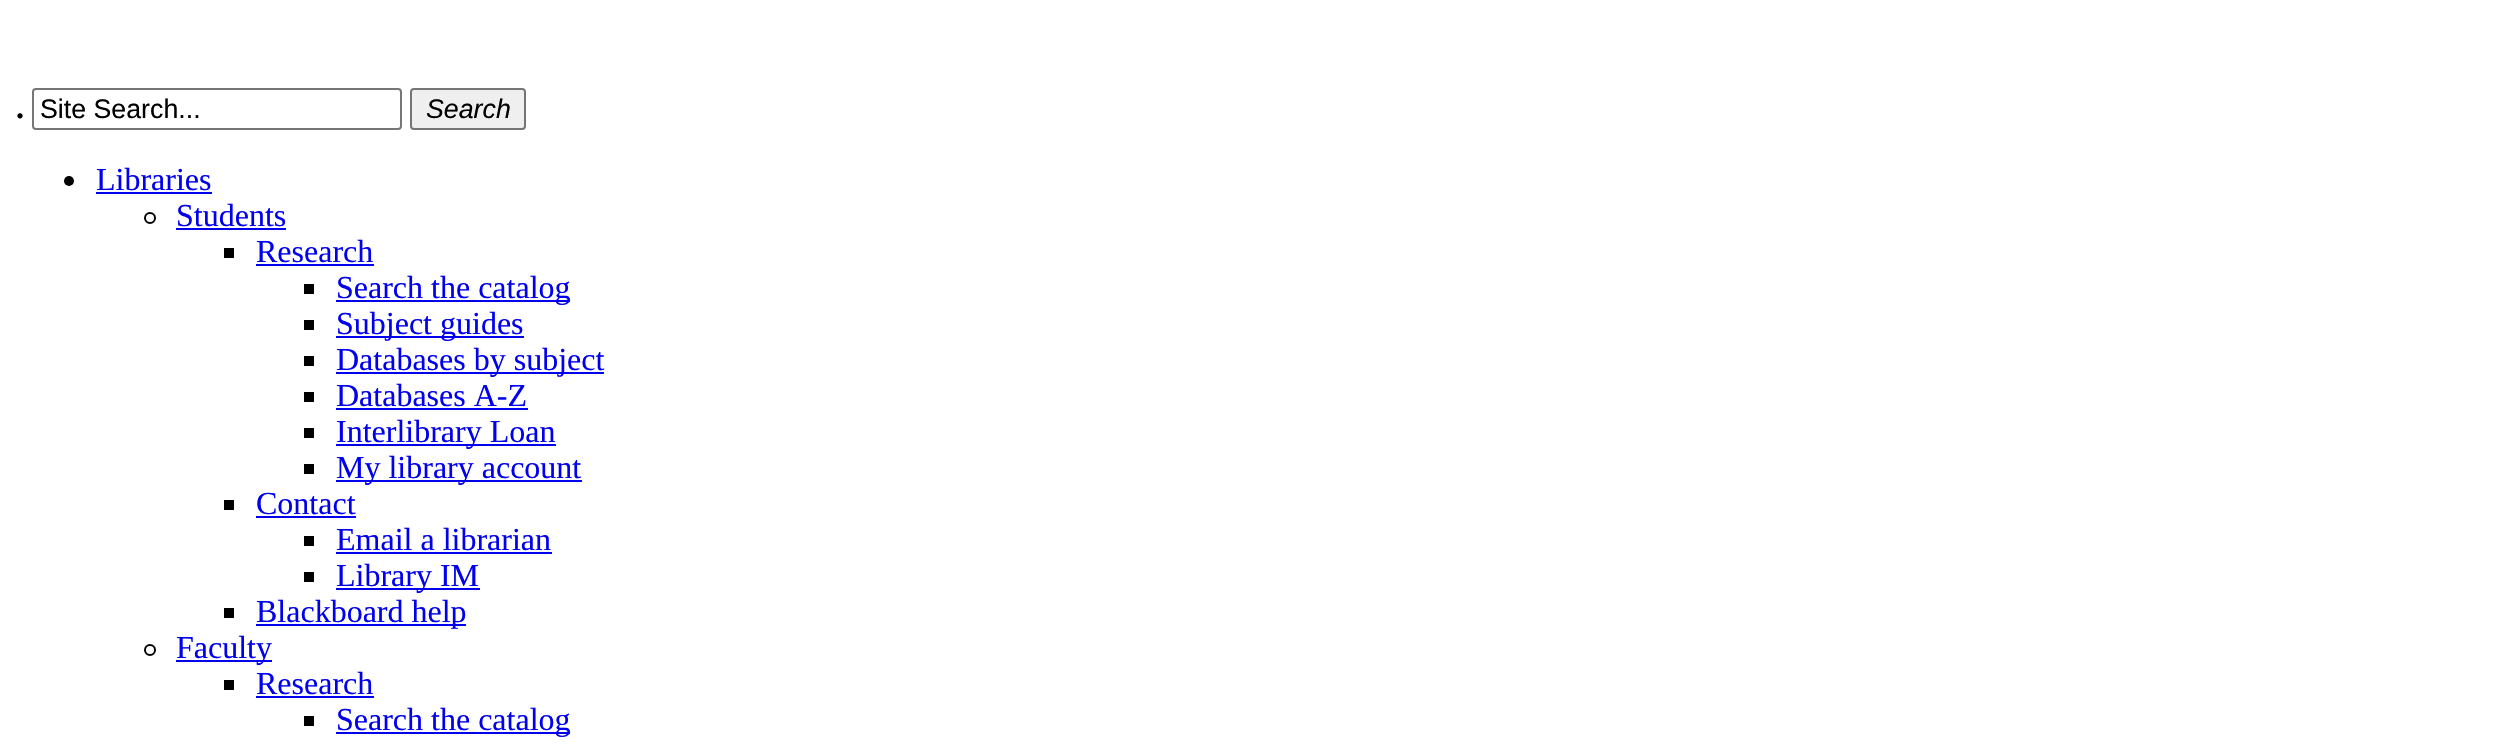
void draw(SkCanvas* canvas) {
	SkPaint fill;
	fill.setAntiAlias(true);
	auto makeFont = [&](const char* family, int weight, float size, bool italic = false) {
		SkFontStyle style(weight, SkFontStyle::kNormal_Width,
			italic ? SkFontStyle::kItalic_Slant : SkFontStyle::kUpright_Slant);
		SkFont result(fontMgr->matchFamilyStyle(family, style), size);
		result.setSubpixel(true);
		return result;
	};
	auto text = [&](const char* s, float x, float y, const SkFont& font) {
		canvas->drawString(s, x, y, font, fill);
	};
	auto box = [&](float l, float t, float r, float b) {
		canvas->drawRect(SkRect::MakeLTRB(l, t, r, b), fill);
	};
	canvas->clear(0xFFFFFFFF);
	fill.setStyle(SkPaint::kStroke_Style);
	fill.setStrokeWidth(2);
	fill.setColor(0xFF767676);
	canvas->drawRoundRect(SkRect::MakeLTRB(33, 89, 401, 129), 3, 3, fill);
	fill.setStyle(SkPaint::kFill_Style);
	fill.setColor(0xFFEFEFEF);
	canvas->drawRoundRect(SkRect::MakeLTRB(411, 89, 525, 129), 3, 3, fill);
	fill.setStyle(SkPaint::kStroke_Style);
	fill.setColor(0xFF767676);
	canvas->drawRoundRect(SkRect::MakeLTRB(411, 89, 525, 129), 3, 3, fill);
	fill.setStyle(SkPaint::kFill_Style);
	fill.setColor(0xFF000000);
	canvas->drawCircle(69, 181, 5, fill);
	fill.setColor(0xFF0000EE);
	box(96, 192, 212, 194);
	fill.setStyle(SkPaint::kStroke_Style);
	fill.setColor(0xFF000000);
	canvas->drawCircle(150, 218, 5, fill);
	fill.setStyle(SkPaint::kFill_Style);
	fill.setColor(0xFF0000EE);
	box(176, 228, 286, 230);
	fill.setColor(0xFF000000);
	box(224, 248, 234, 258);
	fill.setColor(0xFF0000EE);
	box(256, 264, 374, 266);
	fill.setColor(0xFF000000);
	box(304, 284, 314, 294);
	fill.setColor(0xFF0000EE);
	box(336, 300, 570, 302);
	fill.setColor(0xFF000000);
	box(304, 320, 314, 330);
	fill.setColor(0xFF0000EE);
	box(336, 336, 524, 338);
	fill.setColor(0xFF000000);
	box(304, 356, 314, 366);
	fill.setColor(0xFF0000EE);
	box(336, 372, 604, 374);
	fill.setColor(0xFF000000);
	box(304, 392, 314, 402);
	fill.setColor(0xFF0000EE);
	box(336, 408, 528, 410);
	fill.setColor(0xFF000000);
	box(304, 428, 314, 438);
	fill.setColor(0xFF0000EE);
	box(336, 444, 556, 446);
	fill.setColor(0xFF000000);
	box(304, 464, 314, 474);
	fill.setColor(0xFF0000EE);
	box(336, 480, 582, 482);
	fill.setColor(0xFF000000);
	box(224, 500, 234, 510);
	fill.setColor(0xFF0000EE);
	box(256, 516, 356, 518);
	fill.setColor(0xFF000000);
	box(304, 536, 314, 546);
	fill.setColor(0xFF0000EE);
	box(336, 552, 552, 554);
	fill.setColor(0xFF000000);
	box(304, 572, 314, 582);
	fill.setColor(0xFF0000EE);
	box(336, 588, 480, 590);
	fill.setColor(0xFF000000);
	box(224, 608, 234, 618);
	fill.setColor(0xFF0000EE);
	box(256, 624, 466, 626);
	fill.setStyle(SkPaint::kStroke_Style);
	fill.setColor(0xFF000000);
	canvas->drawCircle(150, 650, 5, fill);
	fill.setStyle(SkPaint::kFill_Style);
	fill.setColor(0xFF0000EE);
	box(176, 660, 272, 662);
	fill.setColor(0xFF000000);
	box(224, 680, 234, 690);
	fill.setColor(0xFF0000EE);
	box(256, 696, 374, 698);
	fill.setColor(0xFF000000);
	box(304, 716, 314, 726);
	fill.setColor(0xFF0000EE);
	box(336, 732, 570, 734);
	auto font1 = makeFont("Liberation Serif", 700, 32);
	fill.setColor(0xFF000000);
	text(".", 16, 118, font1);
	auto font2 = makeFont("Liberation Sans", 400, 26.75f);
	text("Site Search...", 40, 118, font2);
	auto font3 = makeFont("Liberation Sans", 400, 26.75f, true);
	text("Search", 426, 118, font3);
	auto font4 = makeFont("Liberation Serif", 400, 32);
	fill.setColor(0xFF0000EE);
	text("Libraries", 96, 190, font4);
	text("Students", 176, 226, font4);
	text("Research", 256, 262, font4);
	text("Search the catalog", 336, 298, font4);
	text("Subject guides", 336, 334, font4);
	text("Databases by subject", 336, 370, font4);
	text("Databases A-Z", 336, 406, font4);
	text("Interlibrary Loan", 336, 442, font4);
	text("My library account", 336, 478, font4);
	text("Contact", 256, 514, font4);
	text("Email a librarian", 336, 550, font4);
	text("Library IM", 336, 586, font4);
	text("Blackboard help", 256, 622, font4);
	text("Faculty", 176, 658, font4);
	text("Research", 256, 694, font4);
	text("Search the catalog", 336, 730, font4);
}
